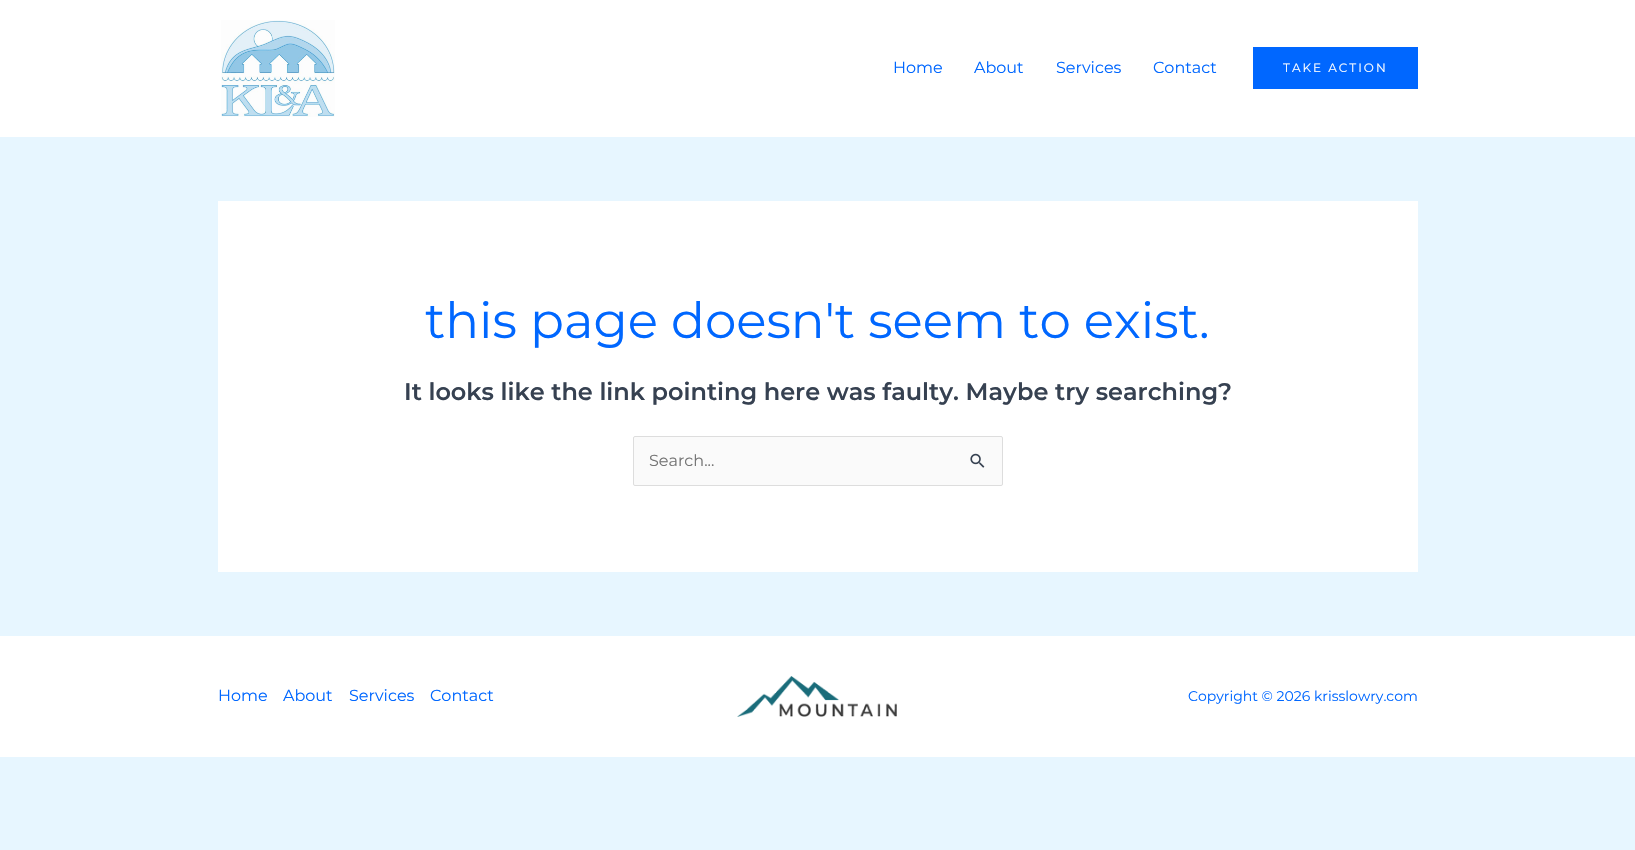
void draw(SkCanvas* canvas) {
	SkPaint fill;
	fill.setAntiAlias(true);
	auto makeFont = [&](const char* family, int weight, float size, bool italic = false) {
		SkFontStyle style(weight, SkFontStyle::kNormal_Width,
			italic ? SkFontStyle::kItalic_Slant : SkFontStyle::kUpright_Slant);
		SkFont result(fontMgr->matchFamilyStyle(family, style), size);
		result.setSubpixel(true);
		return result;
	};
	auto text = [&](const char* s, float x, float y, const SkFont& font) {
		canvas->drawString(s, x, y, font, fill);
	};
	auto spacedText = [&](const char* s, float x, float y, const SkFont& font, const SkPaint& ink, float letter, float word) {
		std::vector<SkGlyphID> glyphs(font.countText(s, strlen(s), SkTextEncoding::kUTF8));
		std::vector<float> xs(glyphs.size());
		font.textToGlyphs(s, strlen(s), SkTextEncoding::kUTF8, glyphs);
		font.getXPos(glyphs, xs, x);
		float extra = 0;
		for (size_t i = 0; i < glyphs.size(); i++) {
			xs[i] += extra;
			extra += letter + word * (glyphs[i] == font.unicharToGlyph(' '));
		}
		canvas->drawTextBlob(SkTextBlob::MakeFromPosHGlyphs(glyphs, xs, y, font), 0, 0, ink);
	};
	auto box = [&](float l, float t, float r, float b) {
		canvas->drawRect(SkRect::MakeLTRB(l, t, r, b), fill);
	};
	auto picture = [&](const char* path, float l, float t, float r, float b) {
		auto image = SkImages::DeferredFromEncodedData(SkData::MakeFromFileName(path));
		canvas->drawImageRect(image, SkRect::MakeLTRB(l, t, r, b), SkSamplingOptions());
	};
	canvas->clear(0xFFE7F6FF);
	fill.setColor(0xFFFFFFFF);
	box(0, 0, 1635, 137);
	picture("image0.png", 221, 20, 335, 117);
	fill.setColor(0xFF0067FF);
	box(1253, 47, 1418, 89);
	fill.setColor(0xFFFFFFFF);
	box(218, 201, 1418, 572);
	fill.setColor(0xFFFAFAFA);
	canvas->drawRoundRect(SkRect::MakeLTRB(633.5f, 436.5f, 1002.5f, 485.5f), 1.5f, 1.5f, fill);
	fill.setStyle(SkPaint::kStroke_Style);
	fill.setStrokeWidth(1);
	fill.setColor(0xFFDDDDDD);
	canvas->drawRoundRect(SkRect::MakeLTRB(633.5f, 436.5f, 1002.5f, 485.5f), 1.5f, 1.5f, fill);
	picture("image1.png", 970, 453, 985, 468);
	fill.setStyle(SkPaint::kFill_Style);
	fill.setColor(0xFFFFFFFF);
	box(0, 636, 1635, 757);
	picture("image2.png", 737, 676, 897, 717);
	auto font1 = makeFont("Montserrat", 400, 16);
	fill.setColor(0xFF0067FF);
	text("Home", 893, 73, font1);
	text("About", 974, 73, font1);
	text("Services", 1056, 73, font1);
	text("Contact", 1153, 73, font1);
	auto font2 = makeFont("Montserrat", 400, 12);
	fill.setColor(0xFFFFFFFF);
	spacedText("TAKE ACTION", 1283, 72, font2, fill, 2, 0);
	auto font3 = makeFont("Montserrat", 400, 50);
	fill.setColor(0xFF0067FF);
	text("this page doesn't seem to exist.", 425, 338, font3);
	auto font4 = makeFont("Montserrat", 600, 24);
	fill.setColor(0xFF364151);
	text("It looks like the link pointing here was faulty. Maybe try searching?", 404, 400, font4);
	fill.setColor(0xFF757575);
	text("Search...", 649, 466, font1);
	fill.setColor(0xFF0067FF);
	text("Home", 218, 701, font1);
	text("About", 283, 701, font1);
	text("Services", 349, 701, font1);
	text("Contact", 430, 701, font1);
	auto font5 = makeFont("Montserrat", 400, 14);
	text("Copyright © 2026 krisslowry.com", 1188, 701, font5);
}
